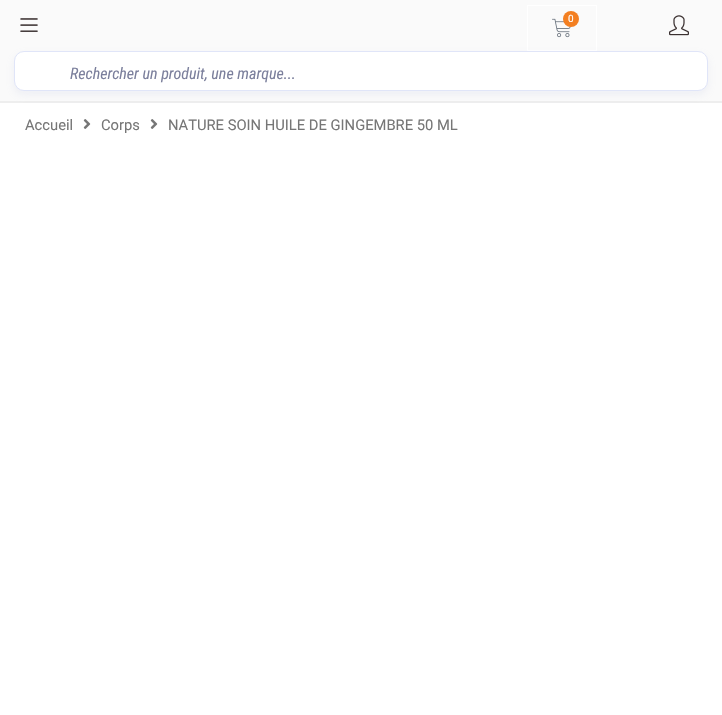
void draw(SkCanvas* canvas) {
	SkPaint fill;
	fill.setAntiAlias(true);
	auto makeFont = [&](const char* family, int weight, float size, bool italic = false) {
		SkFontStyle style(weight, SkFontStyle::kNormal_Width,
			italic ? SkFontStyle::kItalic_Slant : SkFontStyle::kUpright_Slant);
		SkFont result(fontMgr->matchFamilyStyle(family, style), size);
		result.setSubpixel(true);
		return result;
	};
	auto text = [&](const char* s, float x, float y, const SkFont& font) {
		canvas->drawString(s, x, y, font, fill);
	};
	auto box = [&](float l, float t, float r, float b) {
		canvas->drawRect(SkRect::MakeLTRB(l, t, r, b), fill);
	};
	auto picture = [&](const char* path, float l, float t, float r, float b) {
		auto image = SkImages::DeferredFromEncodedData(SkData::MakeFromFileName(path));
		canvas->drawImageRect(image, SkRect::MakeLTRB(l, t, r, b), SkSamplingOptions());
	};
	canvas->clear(0xFFFFFFFF);
	fill.setColor(0xFFFAFAFA);
	box(0, 0, 722, 101);
	fill.setColor(0xFFEEEEEE);
	box(0, 101, 722, 103);
	picture("image0.png", 20, 18, 38, 32);
	fill.setStyle(SkPaint::kStroke_Style);
	fill.setStrokeWidth(1);
	fill.setColor(0xFFFFFFFF);
	canvas->drawRect(SkRect::MakeLTRB(527.5f, 5.5f, 596.5f, 50.5f), fill);
	picture("image1.png", 552, 18, 571, 38);
	fill.setStyle(SkPaint::kFill_Style);
	fill.setColor(0xFFF37F21);
	canvas->drawCircle(571, 19, 8, fill);
	picture("image2.png", 669, 15, 689, 36);
	fill.setColor(0x26A5AED5);
	fill.setMaskFilter(SkMaskFilter::MakeBlur(kNormal_SkBlurStyle, 4));
	canvas->drawRoundRect(SkRect::MakeLTRB(14, 55, 708, 95), 10, 10, fill);
	fill.setMaskFilter(nullptr);
	fill.setColor(0xFFFFFFFF);
	canvas->drawRoundRect(SkRect::MakeLTRB(14.5f, 51.5f, 707.5f, 90.5f), 9.5f, 9.5f, fill);
	fill.setStyle(SkPaint::kStroke_Style);
	fill.setColor(0xFFE0E5F8);
	canvas->drawRoundRect(SkRect::MakeLTRB(14.5f, 51.5f, 707.5f, 90.5f), 9.5f, 9.5f, fill);
	picture("image3.png", 83, 119, 91, 129);
	picture("image3.png", 150, 119, 158, 129);
	auto font1 = makeFont("Roboto", 400, 10);
	fill.setStyle(SkPaint::kFill_Style);
	fill.setColor(0xFFFFFFFF);
	text("0", 568, 22, font1);
	auto font2 = makeFont("Roboto Condensed", 400, 16, true);
	fill.setColor(0xFF7B7F9C);
	text("Rechercher un produit, une marque...", 70, 79, font2);
	auto font3 = makeFont("Roboto", 400, 14.75f);
	fill.setColor(0xFF767676);
	text("Accueil", 25, 130, font3);
	text("Corps", 101, 130, font3);
	text("NATURE SOIN HUILE DE GINGEMBRE 50 ML", 168, 130, font3);
}
